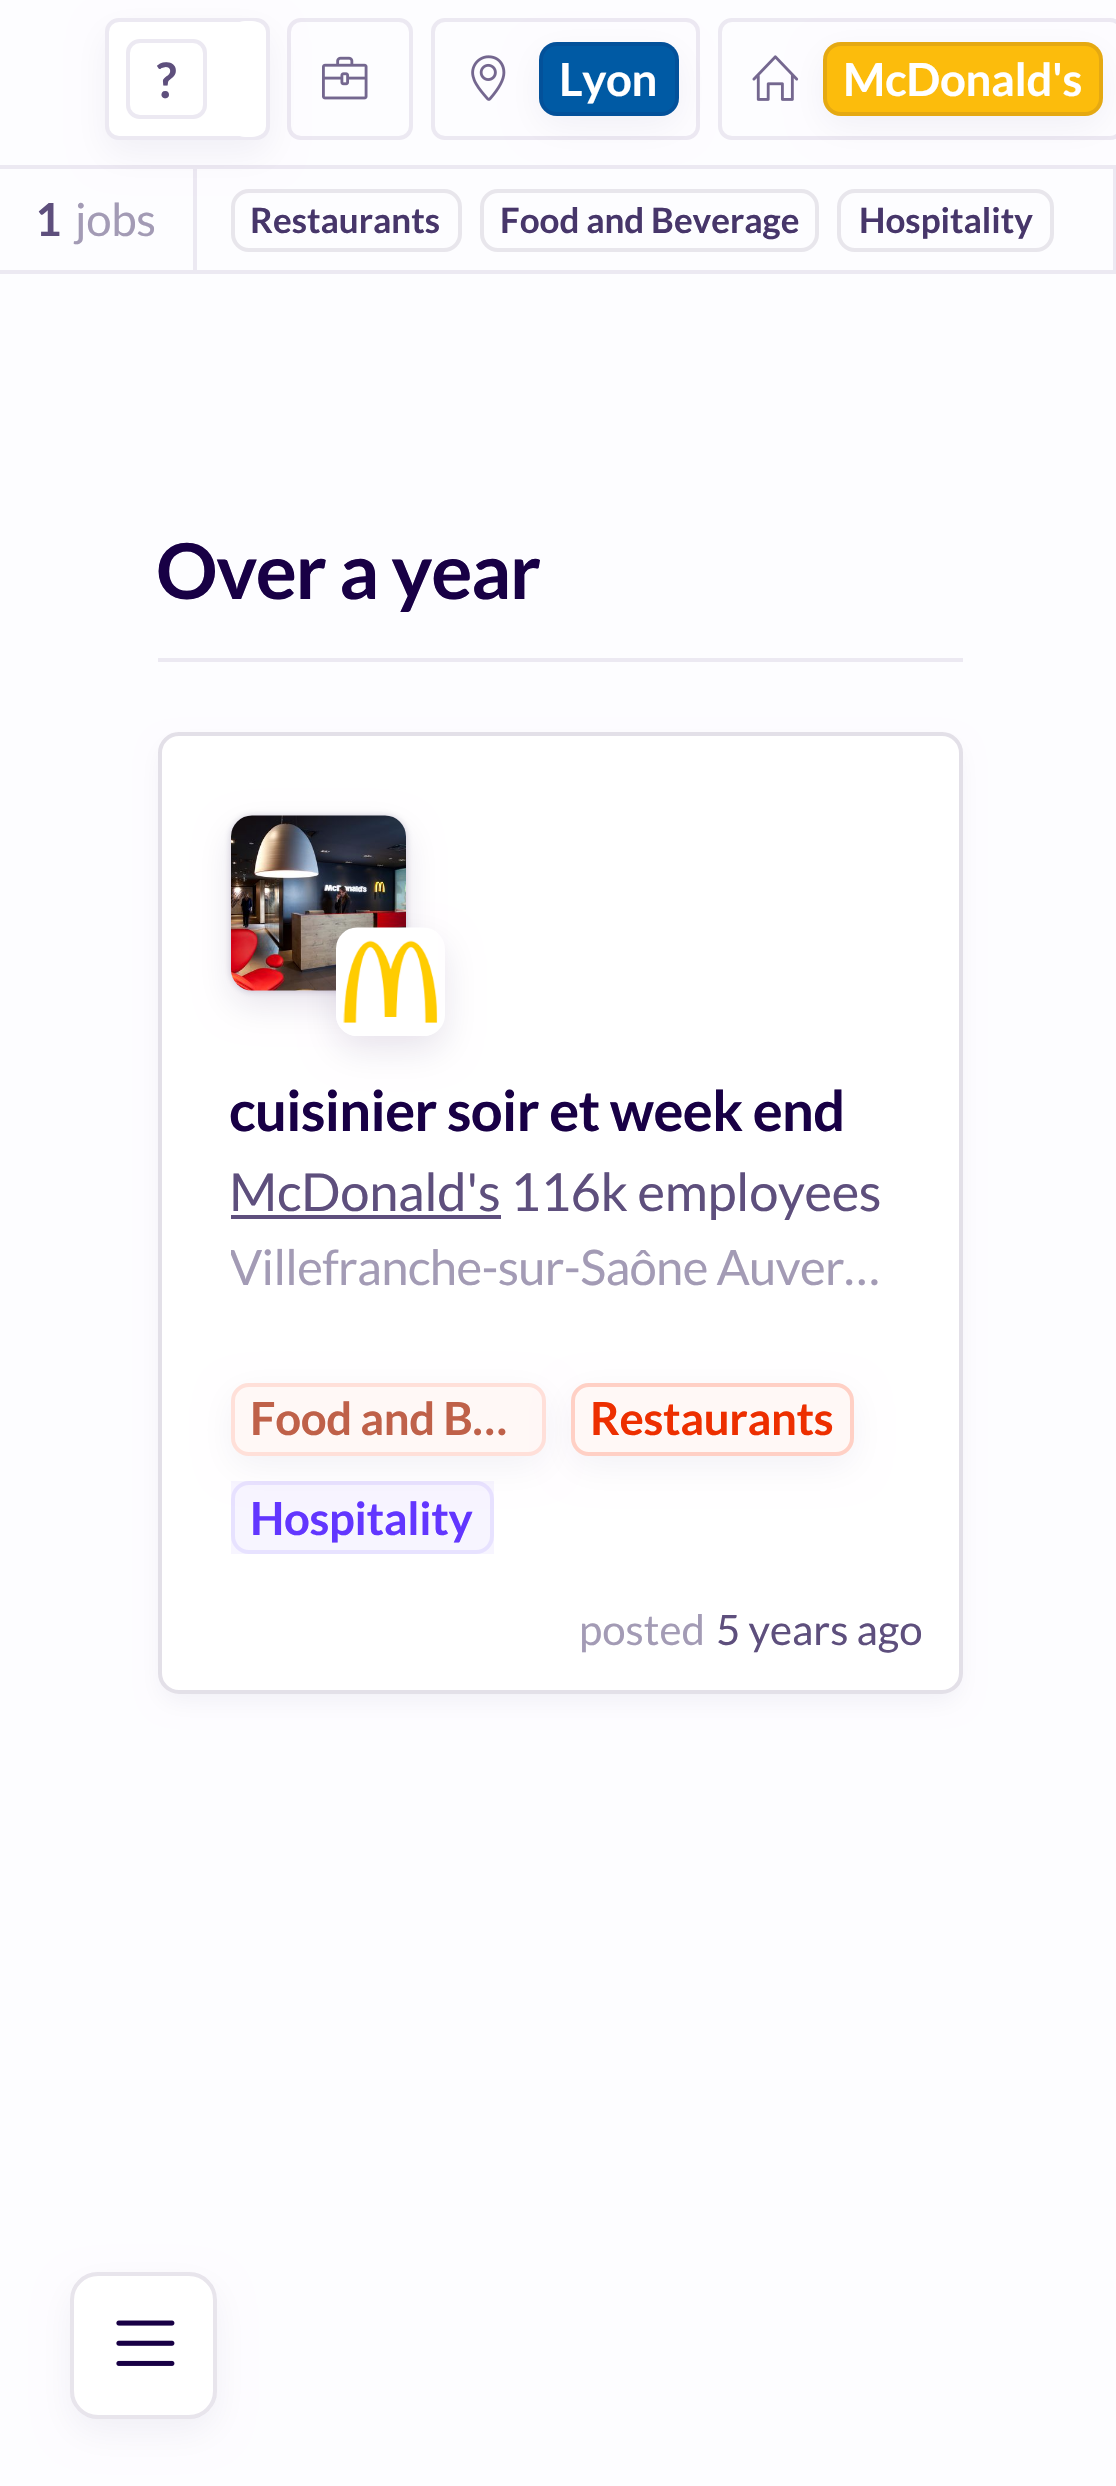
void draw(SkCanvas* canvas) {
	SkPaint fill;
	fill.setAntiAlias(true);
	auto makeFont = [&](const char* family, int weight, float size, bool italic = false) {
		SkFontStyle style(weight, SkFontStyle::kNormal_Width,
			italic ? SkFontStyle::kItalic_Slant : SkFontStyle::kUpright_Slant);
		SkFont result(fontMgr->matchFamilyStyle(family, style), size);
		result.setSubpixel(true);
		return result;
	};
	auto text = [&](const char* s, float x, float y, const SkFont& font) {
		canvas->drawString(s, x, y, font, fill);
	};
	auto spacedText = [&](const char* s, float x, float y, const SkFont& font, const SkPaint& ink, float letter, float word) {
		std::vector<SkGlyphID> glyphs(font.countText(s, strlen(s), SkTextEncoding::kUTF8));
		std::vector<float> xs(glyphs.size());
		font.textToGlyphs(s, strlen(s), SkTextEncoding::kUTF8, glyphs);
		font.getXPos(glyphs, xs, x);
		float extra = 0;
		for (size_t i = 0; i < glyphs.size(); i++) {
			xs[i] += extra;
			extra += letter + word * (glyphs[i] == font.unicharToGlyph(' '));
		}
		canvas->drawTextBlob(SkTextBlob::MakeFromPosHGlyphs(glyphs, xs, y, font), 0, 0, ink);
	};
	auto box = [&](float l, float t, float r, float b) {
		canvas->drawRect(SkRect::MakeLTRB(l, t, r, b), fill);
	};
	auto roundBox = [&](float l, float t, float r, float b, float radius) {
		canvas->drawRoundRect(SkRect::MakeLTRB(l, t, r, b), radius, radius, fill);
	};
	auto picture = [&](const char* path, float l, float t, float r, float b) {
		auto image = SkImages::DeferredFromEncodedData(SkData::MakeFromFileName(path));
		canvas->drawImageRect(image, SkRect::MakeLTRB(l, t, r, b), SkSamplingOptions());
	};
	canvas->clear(0xFFFDFDFF);
	fill.setColor(0xFFECE9F2);
	box(0, 165, 1116, 169);
	fill.setStyle(SkPaint::kStroke_Style);
	fill.setStrokeWidth(4);
	canvas->drawRoundRect(SkRect::MakeLTRB(289, 20, 411, 138), 12, 12, fill);
	picture("image0.png", 322, 56, 368, 100);
	fill.setStyle(SkPaint::kFill_Style);
	box(0, 270, 1116, 274);
	box(193, 168, 197, 273);
	fill.setStyle(SkPaint::kStroke_Style);
	fill.setColor(0xFFE8E6EC);
	canvas->drawRoundRect(SkRect::MakeLTRB(233, 191, 460, 250), 16, 16, fill);
	fill.setStyle(SkPaint::kFill_Style);
	fill.setColor(0x0D190445);
	fill.setMaskFilter(SkMaskFilter::MakeBlur(kNormal_SkBlurStyle, 17.5f));
	canvas->drawRoundRect(SkRect::MakeLTRB(105, 32, 270, 154), 14, 14, fill);
	fill.setMaskFilter(nullptr);
	fill.setColor(0xFFFFFFFF);
	canvas->drawRoundRect(SkRect::MakeLTRB(107, 20, 268, 138), 12, 12, fill);
	fill.setStyle(SkPaint::kStroke_Style);
	fill.setColor(0xFFECE9F2);
	canvas->drawRoundRect(SkRect::MakeLTRB(107, 20, 268, 138), 12, 12, fill);
	canvas->drawRoundRect(SkRect::MakeLTRB(128, 41, 205, 117), 12, 12, fill);
	fill.setStyle(SkPaint::kFill_Style);
	fill.setColor(0xFFFFFFFF);
	roundBox(231, 21, 266, 137, 14);
	fill.setStyle(SkPaint::kStroke_Style);
	fill.setColor(0xFFECE9F2);
	canvas->drawRoundRect(SkRect::MakeLTRB(433, 20, 698, 138), 12, 12, fill);
	picture("image1.png", 471, 55, 506, 101);
	fill.setStyle(SkPaint::kFill_Style);
	fill.setColor(0x0D190445);
	fill.setMaskFilter(SkMaskFilter::MakeBlur(kNormal_SkBlurStyle, 17.5f));
	canvas->drawRoundRect(SkRect::MakeLTRB(539, 53, 679, 126), 18, 18, fill);
	fill.setMaskFilter(nullptr);
	fill.setColor(0xFF005AA4);
	roundBox(539, 42, 679, 116, 18);
	fill.setStyle(SkPaint::kStroke_Style);
	fill.setColor(0x1A190445);
	canvas->drawRoundRect(SkRect::MakeLTRB(541, 44, 677, 114), 16, 16, fill);
	fill.setColor(0xFFECE9F2);
	canvas->drawRoundRect(SkRect::MakeLTRB(720, 20, 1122, 138), 12, 12, fill);
	picture("image2.png", 752, 55, 799, 101);
	fill.setStyle(SkPaint::kFill_Style);
	fill.setColor(0x0D190445);
	fill.setMaskFilter(SkMaskFilter::MakeBlur(kNormal_SkBlurStyle, 17.5f));
	canvas->drawRoundRect(SkRect::MakeLTRB(823, 53, 1103, 126), 18, 18, fill);
	fill.setMaskFilter(nullptr);
	fill.setColor(0xFFFCBC0C);
	roundBox(823, 42, 1103, 116, 18);
	fill.setStyle(SkPaint::kStroke_Style);
	fill.setColor(0x1A190445);
	canvas->drawRoundRect(SkRect::MakeLTRB(825, 44, 1101, 114), 16, 16, fill);
	fill.setStyle(SkPaint::kFill_Style);
	fill.setColor(0xFFECE9F2);
	box(1113, 168, 1116, 273);
	fill.setStyle(SkPaint::kStroke_Style);
	fill.setColor(0xFFE8E6EC);
	canvas->drawRoundRect(SkRect::MakeLTRB(482, 191, 817, 250), 16, 16, fill);
	canvas->drawRoundRect(SkRect::MakeLTRB(839, 191, 1052, 250), 16, 16, fill);
	fill.setStyle(SkPaint::kFill_Style);
	fill.setColor(0xFFECE9F2);
	box(158, 658, 963, 662);
	fill.setColor(0x0D190445);
	fill.setMaskFilter(SkMaskFilter::MakeBlur(kNormal_SkBlurStyle, 12));
	canvas->drawRoundRect(SkRect::MakeLTRB(161, 746, 959, 1701), 18, 18, fill);
	fill.setMaskFilter(nullptr);
	fill.setColor(0xFFFFFFFF);
	roundBox(158, 732, 963, 1694, 21);
	fill.setStyle(SkPaint::kStroke_Style);
	fill.setColor(0x1F190445);
	canvas->drawRoundRect(SkRect::MakeLTRB(160, 734, 961, 1692), 19, 19, fill);
	fill.setStyle(SkPaint::kFill_Style);
	fill.setColor(0x33190445);
	fill.setMaskFilter(SkMaskFilter::MakeBlur(kNormal_SkBlurStyle, 3.5f));
	canvas->drawRoundRect(SkRect::MakeLTRB(231, 816, 406, 991), 21, 21, fill);
	fill.setMaskFilter(nullptr);
	fill.setColor(0x1A190445);
	fill.setMaskFilter(SkMaskFilter::MakeBlur(kNormal_SkBlurStyle, 17.5f));
	canvas->drawRoundRect(SkRect::MakeLTRB(231, 830, 406, 1005), 21, 21, fill);
	fill.setMaskFilter(nullptr);
	picture("image3.png", 231, 815, 406, 991);
	canvas->save();
	canvas->clipPath(SkPathBuilder(SkPathFillType::kEvenOdd).moveTo(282, 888).lineTo(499, 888).lineTo(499, 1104).lineTo(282, 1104).close().moveTo(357, 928).lineTo(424, 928).cubicTo(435.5f, 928, 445, 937.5f, 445, 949).lineTo(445, 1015).cubicTo(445, 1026.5f, 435.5f, 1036, 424, 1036).lineTo(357, 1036).cubicTo(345.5f, 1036, 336, 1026.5f, 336, 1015).lineTo(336, 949).cubicTo(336, 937.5f, 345.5f, 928, 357, 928).close().detach(), true);
	fill.setMaskFilter(SkMaskFilter::MakeBlur(kNormal_SkBlurStyle, 17.5f));
	canvas->drawRoundRect(SkRect::MakeLTRB(336, 942, 445, 1050), 21, 21, fill);
	fill.setMaskFilter(nullptr);
	canvas->restore();
	picture("image4.png", 336, 927, 438, 1036);
	fill.setColor(0xFF5E4F7D);
	box(231, 1215, 501, 1219);
	fill.setColor(0x0D190445);
	fill.setMaskFilter(SkMaskFilter::MakeBlur(kNormal_SkBlurStyle, 17.5f));
	canvas->drawRoundRect(SkRect::MakeLTRB(231, 1393, 546, 1467), 18, 18, fill);
	fill.setMaskFilter(nullptr);
	fill.setColor(0xFFFFF8F6);
	roundBox(231, 1383, 546, 1456, 18);
	fill.setStyle(SkPaint::kStroke_Style);
	fill.setColor(0x33FF8162);
	canvas->drawRoundRect(SkRect::MakeLTRB(233, 1385, 544, 1454), 16, 16, fill);
	fill.setStyle(SkPaint::kFill_Style);
	fill.setColor(0x0D190445);
	fill.setMaskFilter(SkMaskFilter::MakeBlur(kNormal_SkBlurStyle, 17.5f));
	canvas->drawRoundRect(SkRect::MakeLTRB(571, 1393, 854, 1467), 18, 18, fill);
	fill.setMaskFilter(nullptr);
	fill.setColor(0xFFFFF8F6);
	roundBox(571, 1383, 854, 1456, 18);
	fill.setStyle(SkPaint::kStroke_Style);
	fill.setColor(0x33FF3300);
	canvas->drawRoundRect(SkRect::MakeLTRB(573, 1385, 852, 1454), 16, 16, fill);
	fill.setStyle(SkPaint::kFill_Style);
	fill.setColor(0x0D6236FF);
	box(231, 1481, 494, 1554);
	fill.setStyle(SkPaint::kStroke_Style);
	fill.setColor(0x1A6236FF);
	canvas->drawRoundRect(SkRect::MakeLTRB(233, 1483, 492, 1552), 16, 16, fill);
	fill.setStyle(SkPaint::kFill_Style);
	fill.setColor(0x0D190445);
	fill.setMaskFilter(SkMaskFilter::MakeBlur(kNormal_SkBlurStyle, 17.5f));
	canvas->drawRoundRect(SkRect::MakeLTRB(70, 2286, 217, 2433), 28, 28, fill);
	fill.setMaskFilter(nullptr);
	fill.setColor(0xFFFFFFFF);
	roundBox(70, 2272, 217, 2419, 28);
	fill.setStyle(SkPaint::kStroke_Style);
	fill.setColor(0x1A190445);
	canvas->drawRoundRect(SkRect::MakeLTRB(72, 2274, 215, 2417), 26, 26, fill);
	picture("image5.png", 116, 2320, 175, 2366);
	auto font1 = makeFont("Lato", 700, 49);
	fill.setStyle(SkPaint::kFill_Style);
	fill.setColor(0xFF5E4F7D);
	spacedText("?", 156, 98, font1, fill, -0.7f, 0);
	auto font2 = makeFont("Lato", 700, 45.5f);
	fill.setColor(0xFFFFFFFF);
	spacedText("Lyon", 559, 96, font2, fill, -0.35f, 0);
	spacedText("McDonald's", 843, 96, font2, fill, -0.35f, 0);
	fill.setColor(0xFF5E4F7D);
	spacedText("1", 35, 236, font2, fill, -0.35f, 0);
	auto font3 = makeFont("Lato", 400, 45.5f);
	fill.setColor(0xFFA39BB5);
	spacedText("jobs", 75, 236, font3, fill, -0.35f, 0);
	auto font4 = makeFont("Lato", 700, 35);
	fill.setColor(0xFF47366A);
	text("Restaurants", 250, 233, font4);
	text("Food and Beverage", 500, 233, font4);
	text("Hospitality", 859, 233, font4);
	auto font5 = makeFont("Lato", 700, 77);
	fill.setColor(0xFF180045);
	spacedText("Over a year", 156, 599, font5, fill, -1.4f, 0);
	auto font6 = makeFont("Lato", 700, 56);
	spacedText("cuisinier soir et week end", 229, 1131, font6, fill, -0.6f, 0);
	auto font7 = makeFont("Lato", 400, 52.5f);
	fill.setColor(0xFF5E4F7D);
	spacedText("McDonald's 116k employees", 229, 1211, font7, fill, -0.35f, 0);
	canvas->save();
	canvas->clipRect(SkRect::MakeLTRB(231, 1229, 889, 1302));
	auto font8 = makeFont("Lato", 400, 49);
	fill.setColor(0xFFA39BB5);
	spacedText("Villefranche-sur-Saône Auver…", 229, 1285, font8, fill, -0.7f, 0);
	canvas->restore();
	fill.setColor(0xFFBF6149);
	spacedText("Food and B…", 250, 1435, font2, fill, -0.35f, 0);
	fill.setColor(0xFFED2F00);
	spacedText("Restaurants", 590, 1435, font2, fill, -0.35f, 0);
	fill.setColor(0xFF6236FF);
	spacedText("Hospitality", 250, 1535, font2, fill, -0.35f, 0);
	auto font9 = makeFont("Lato", 400, 42);
	fill.setColor(0xFFA39BB5);
	text("posted", 579, 1645, font9);
	fill.setColor(0xFF5E4F7D);
	text("5 years ago", 716, 1645, font9);
}
